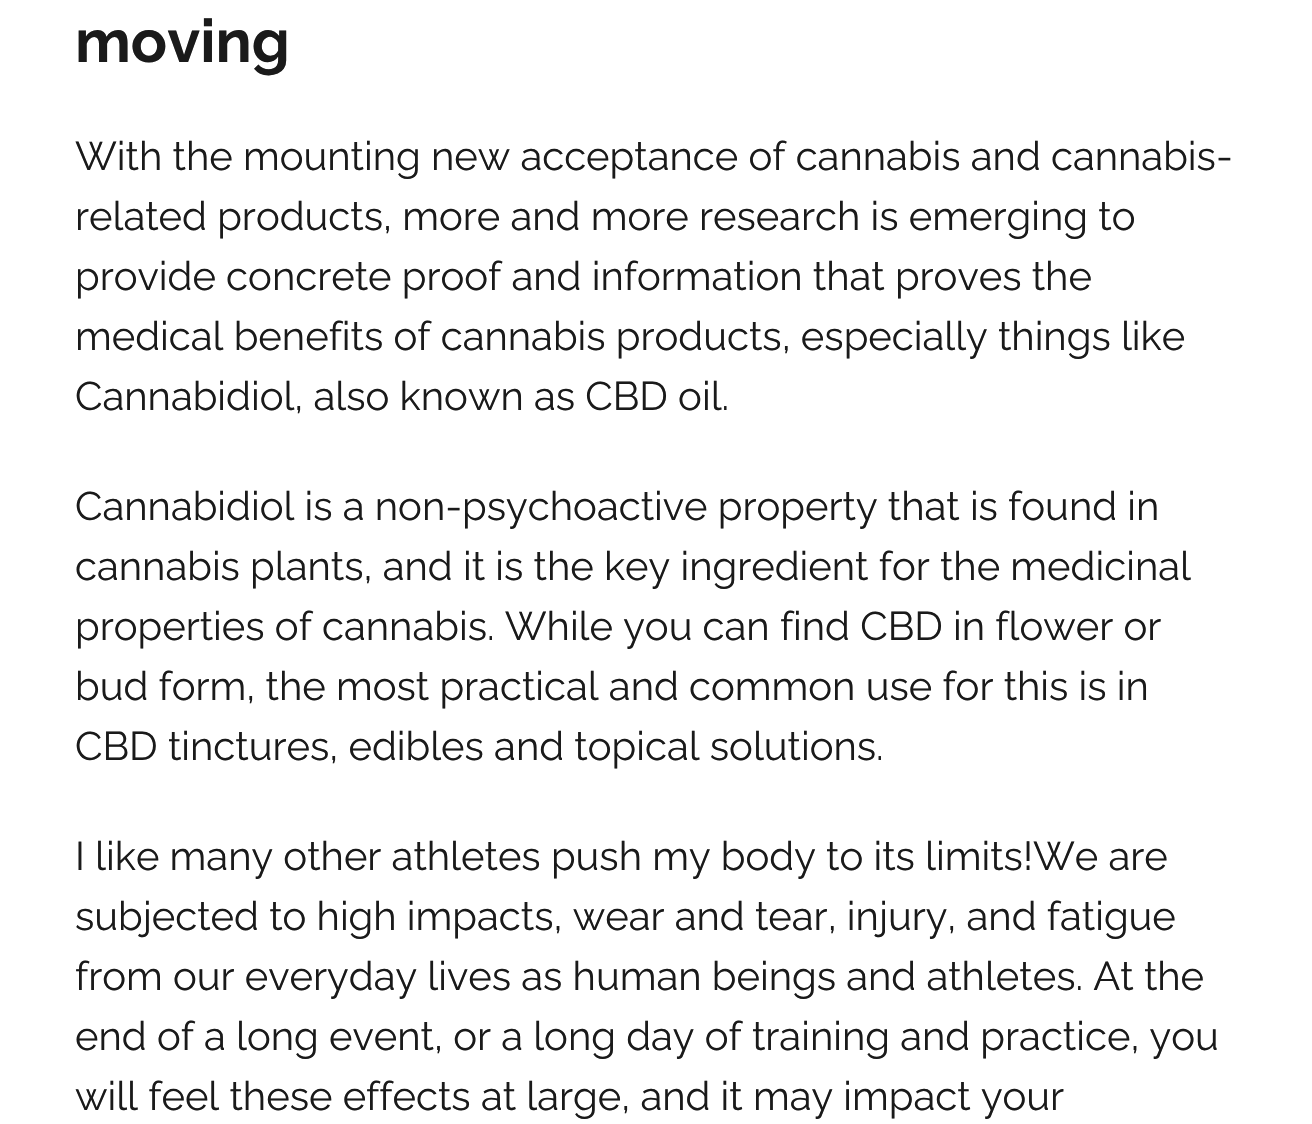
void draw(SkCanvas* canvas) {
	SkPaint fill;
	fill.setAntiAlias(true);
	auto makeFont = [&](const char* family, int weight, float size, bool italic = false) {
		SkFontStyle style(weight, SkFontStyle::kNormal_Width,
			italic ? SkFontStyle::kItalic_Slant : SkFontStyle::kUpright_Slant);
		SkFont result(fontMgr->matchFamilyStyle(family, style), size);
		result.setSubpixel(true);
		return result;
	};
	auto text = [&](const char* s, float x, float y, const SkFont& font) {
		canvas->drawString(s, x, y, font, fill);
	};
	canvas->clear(0xFFFFFFFF);
	auto font1 = makeFont("Raleway", 100, 60);
	fill.setColor(0xFF1A1A1A);
	text("moving", 75, 62, font1);
	auto font2 = makeFont("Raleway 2", 100, 40);
	text("With the mounting new acceptance of cannabis and cannabis-", 75, 170, font2);
	text("related products, more and more research is emerging to", 75, 230, font2);
	text("provide concrete proof and information that proves the", 75, 290, font2);
	text("medical benefits of cannabis products, especially things like", 75, 350, font2);
	text("Cannabidiol, also known as CBD oil.", 75, 410, font2);
	text("Cannabidiol is a non-psychoactive property that is found in", 75, 520, font2);
	text("cannabis plants, and it is the key ingredient for the medicinal", 75, 580, font2);
	text("properties of cannabis. While you can find CBD in flower or", 75, 640, font2);
	text("bud form, the most practical and common use for this is in", 75, 700, font2);
	text("CBD tinctures, edibles and topical solutions.", 75, 760, font2);
	text("I like many other athletes push my body to its limits!We are", 75, 870, font2);
	text("subjected to high impacts, wear and tear, injury, and fatigue", 75, 930, font2);
	text("from our everyday lives as human beings and athletes. At the", 75, 990, font2);
	text("end of a long event, or a long day of training and practice, you", 75, 1050, font2);
	text("will feel these effects at large, and it may impact your", 75, 1110, font2);
}
